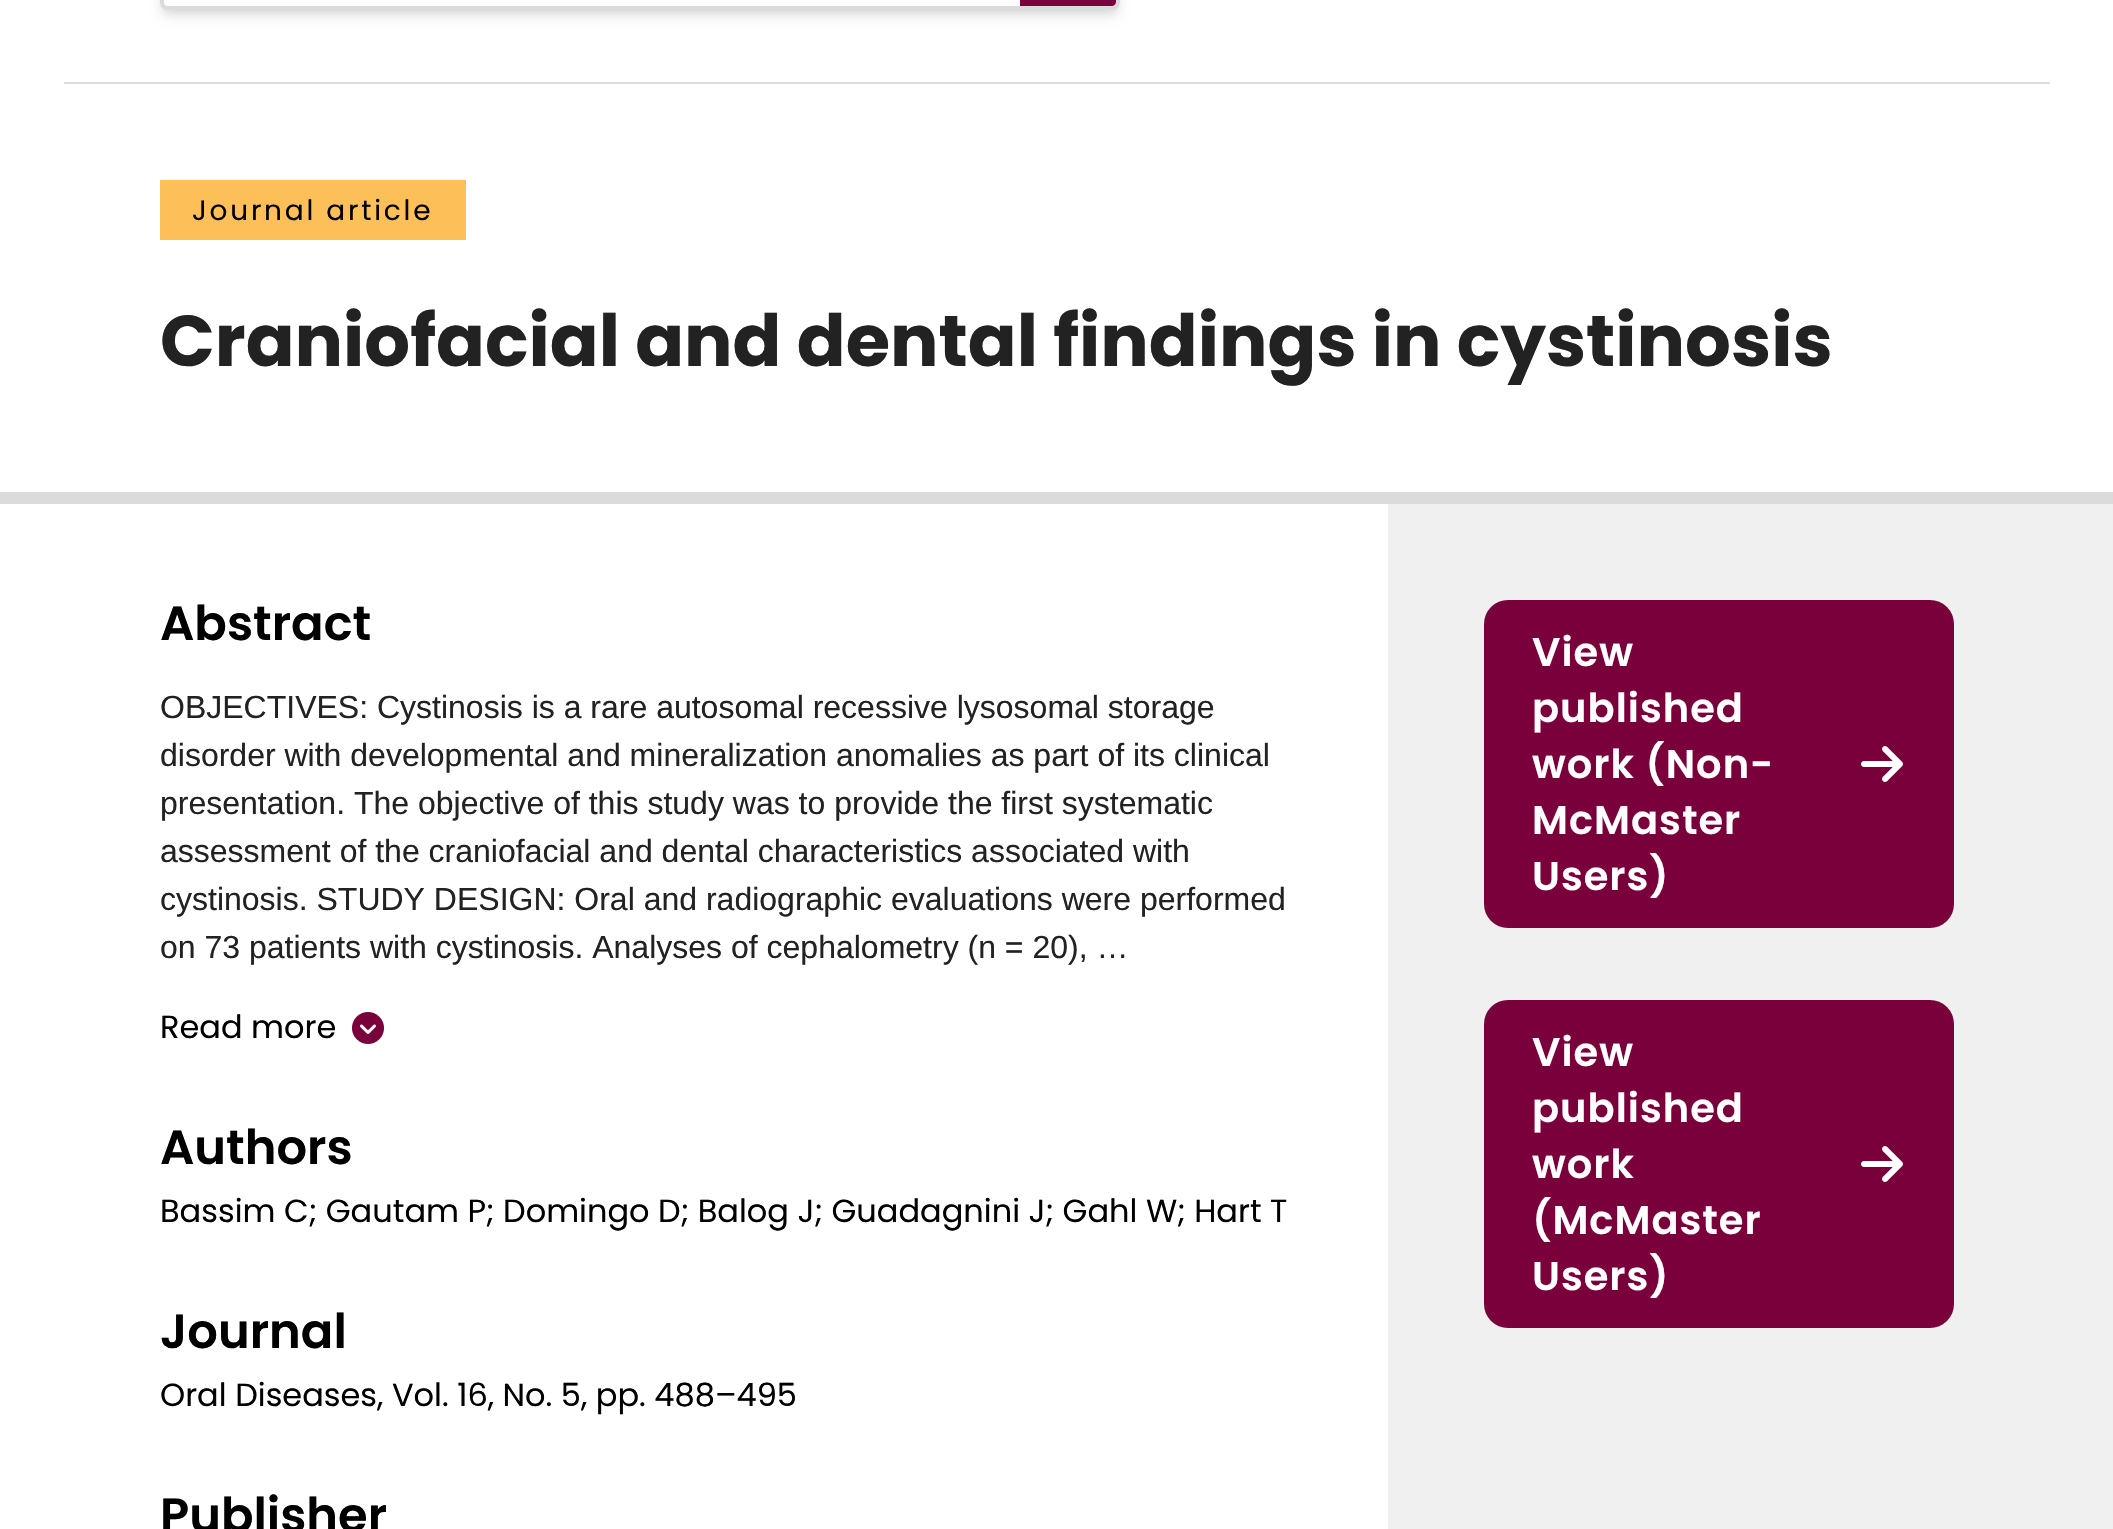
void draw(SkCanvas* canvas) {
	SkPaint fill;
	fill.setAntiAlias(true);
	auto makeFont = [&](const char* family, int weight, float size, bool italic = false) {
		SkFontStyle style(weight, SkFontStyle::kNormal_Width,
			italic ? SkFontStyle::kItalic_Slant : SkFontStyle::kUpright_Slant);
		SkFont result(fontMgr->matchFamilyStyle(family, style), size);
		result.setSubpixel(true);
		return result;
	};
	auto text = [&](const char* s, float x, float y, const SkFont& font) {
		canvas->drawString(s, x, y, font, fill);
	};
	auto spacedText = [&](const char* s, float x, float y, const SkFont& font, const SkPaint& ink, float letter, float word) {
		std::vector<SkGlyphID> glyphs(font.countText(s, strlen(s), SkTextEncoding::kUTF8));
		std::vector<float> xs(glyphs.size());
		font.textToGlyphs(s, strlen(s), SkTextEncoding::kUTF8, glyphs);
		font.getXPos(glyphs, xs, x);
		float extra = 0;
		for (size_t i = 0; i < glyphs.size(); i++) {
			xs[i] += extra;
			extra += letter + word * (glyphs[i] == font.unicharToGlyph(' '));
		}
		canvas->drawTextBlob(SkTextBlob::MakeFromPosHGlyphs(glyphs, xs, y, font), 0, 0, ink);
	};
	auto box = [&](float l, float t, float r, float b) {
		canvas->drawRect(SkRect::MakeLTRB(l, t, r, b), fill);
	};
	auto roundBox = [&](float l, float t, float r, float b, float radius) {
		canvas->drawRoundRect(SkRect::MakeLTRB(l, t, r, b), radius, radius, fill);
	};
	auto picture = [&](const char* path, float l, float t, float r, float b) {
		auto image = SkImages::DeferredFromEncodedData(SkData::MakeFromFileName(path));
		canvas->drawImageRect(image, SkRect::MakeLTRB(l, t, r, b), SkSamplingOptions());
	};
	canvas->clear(0xFFFFFFFF);
	fill.setColor(0x1A000000);
	fill.setMaskFilter(SkMaskFilter::MakeBlur(kNormal_SkBlurStyle, 4));
	canvas->drawRoundRect(SkRect::MakeLTRB(164, -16, 1116, 10), 4, 4, fill);
	fill.setMaskFilter(nullptr);
	fill.setMaskFilter(SkMaskFilter::MakeBlur(kNormal_SkBlurStyle, 6));
	canvas->drawRoundRect(SkRect::MakeLTRB(162, -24, 1118, 16), 6, 6, fill);
	fill.setMaskFilter(nullptr);
	fill.setColor(0xFFFFFFFF);
	canvas->drawRoundRect(SkRect::MakeLTRB(162, -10, 1118, 8), 6, 6, fill);
	fill.setStyle(SkPaint::kStroke_Style);
	fill.setStrokeWidth(4);
	fill.setColor(0xFFDBDBDD);
	canvas->drawRoundRect(SkRect::MakeLTRB(162, -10, 1118, 8), 6, 6, fill);
	fill.setStyle(SkPaint::kFill_Style);
	fill.setColor(0xFF7A003C);
	canvas->drawPath(SkPathBuilder().moveTo(1020, -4).lineTo(1112, -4).cubicTo(1114, -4, 1116, -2, 1116, 0).lineTo(1116, 2).cubicTo(1116, 4, 1114, 6, 1112, 6).lineTo(1020, 6).close().detach(), fill);
	fill.setColor(0xFFDBDBDD);
	box(64, 82, 2050, 84);
	fill.setColor(0xFFFDBF57);
	box(160, 180, 466, 240);
	fill.setColor(0xFFDBDBDD);
	box(0, 492, 2113, 504);
	picture("image0.png", 352, 1012, 384, 1044);
	fill.setColor(0xFFF0F0F0);
	box(1388, 504, 2113, 1529);
	fill.setColor(0xFF7A003C);
	roundBox(1484, 600, 1954, 928, 24);
	picture("image1.png", 1861, 746, 1903, 782);
	roundBox(1484, 1000, 1954, 1328, 24);
	picture("image1.png", 1861, 1146, 1903, 1182);
	auto font1 = makeFont("Poppins", 400, 28);
	fill.setColor(0xFF000000);
	spacedText("Journal article", 192, 220, font1, fill, 2.75f, 0);
	auto font2 = makeFont("Poppins", 700, 72);
	fill.setColor(0xFF222222);
	text("Craniofacial and dental findings in cystinosis", 160, 366, font2);
	auto font3 = makeFont("Poppins", 600, 48);
	fill.setColor(0xFF000000);
	text("Abstract", 160, 640, font3);
	auto font4 = makeFont("Liberation Sans", 400, 32);
	fill.setColor(0xFF222222);
	text("OBJECTIVES: Cystinosis is a rare autosomal recessive lysosomal storage", 160, 718, font4);
	text("disorder with developmental and mineralization anomalies as part of its clinical", 160, 766, font4);
	text("presentation. The objective of this study was to provide the first systematic", 160, 814, font4);
	text("assessment of the craniofacial and dental characteristics associated with", 160, 862, font4);
	text("cystinosis. STUDY DESIGN: Oral and radiographic evaluations were performed", 160, 910, font4);
	text("on 73 patients with cystinosis. Analyses of cephalometry (n = 20), …", 160, 958, font4);
	auto font5 = makeFont("Poppins", 400, 32);
	fill.setColor(0xFF000000);
	text("Read more", 160, 1038, font5);
	text("Authors", 160, 1164, font3);
	text("Bassim C; Gautam P; Domingo D; Balog J; Guadagnini J; Gahl W; Hart T", 160, 1222, font5);
	text("Journal", 160, 1348, font3);
	text("Oral Diseases, Vol. 16, No. 5, pp. 488–495", 160, 1406, font5);
	text("Publisher", 160, 1532, font3);
	auto font6 = makeFont("Poppins", 600, 40);
	fill.setColor(0xFFFFFFFF);
	spacedText("View", 1532, 666, font6, fill, 1, 0);
	spacedText("published", 1532, 722, font6, fill, 1, 0);
	spacedText("work (Non-", 1532, 778, font6, fill, 1, 0);
	spacedText("McMaster", 1532, 834, font6, fill, 1, 0);
	spacedText("Users)", 1532, 890, font6, fill, 1, 0);
	spacedText("View", 1532, 1066, font6, fill, 1, 0);
	spacedText("published", 1532, 1122, font6, fill, 1, 0);
	spacedText("work", 1532, 1178, font6, fill, 1, 0);
	spacedText("(McMaster", 1532, 1234, font6, fill, 1, 0);
	spacedText("Users)", 1532, 1290, font6, fill, 1, 0);
}
